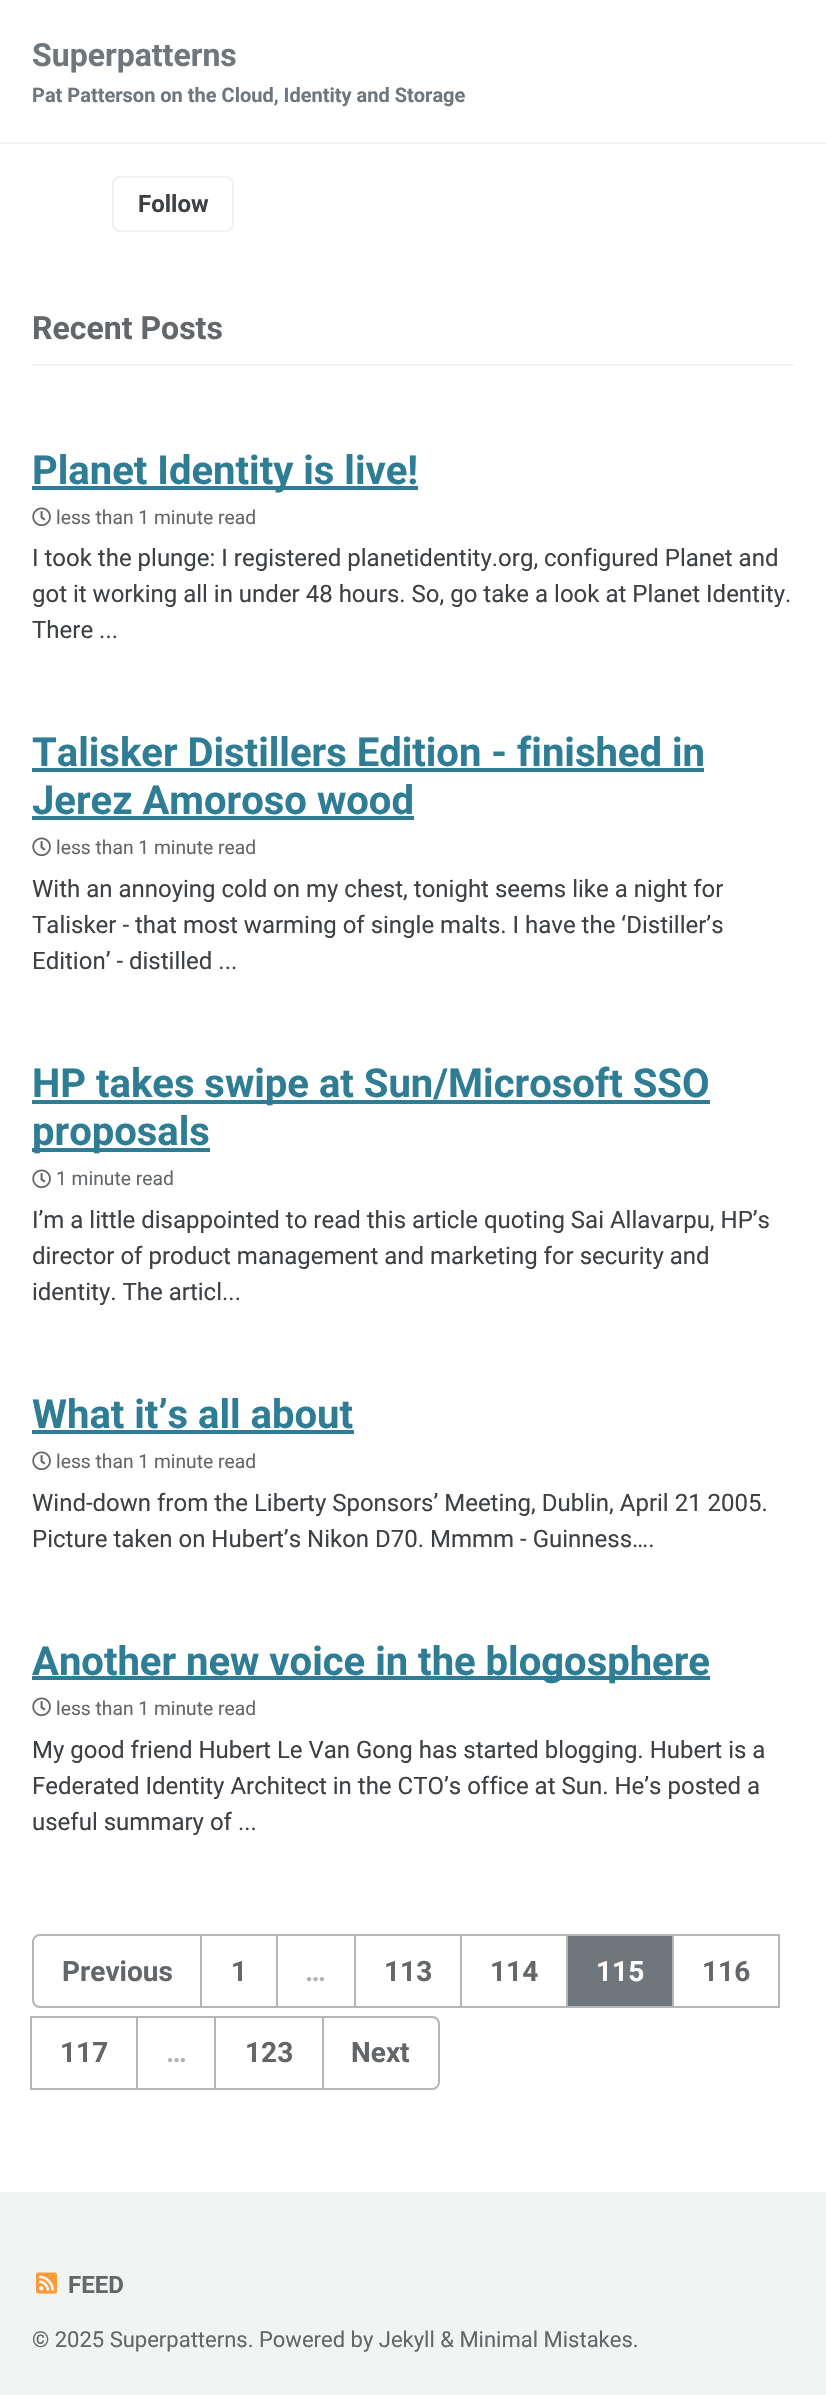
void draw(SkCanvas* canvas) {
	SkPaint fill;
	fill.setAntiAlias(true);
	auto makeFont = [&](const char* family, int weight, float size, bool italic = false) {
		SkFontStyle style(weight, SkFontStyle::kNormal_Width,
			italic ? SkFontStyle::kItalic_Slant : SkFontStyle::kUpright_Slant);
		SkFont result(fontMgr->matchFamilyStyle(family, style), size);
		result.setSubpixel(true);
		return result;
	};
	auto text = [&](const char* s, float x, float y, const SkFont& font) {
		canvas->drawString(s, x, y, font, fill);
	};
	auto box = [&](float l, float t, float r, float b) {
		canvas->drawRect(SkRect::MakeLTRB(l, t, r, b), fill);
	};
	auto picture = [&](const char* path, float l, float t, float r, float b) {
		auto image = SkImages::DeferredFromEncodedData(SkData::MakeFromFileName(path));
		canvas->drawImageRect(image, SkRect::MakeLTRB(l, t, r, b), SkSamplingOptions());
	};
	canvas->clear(0xFFFFFFFF);
	fill.setColor(0xFFF2F3F3);
	box(0, 142, 826, 144);
	fill.setStyle(SkPaint::kStroke_Style);
	fill.setStrokeWidth(2);
	canvas->drawRoundRect(SkRect::MakeLTRB(113, 177, 233, 231), 7, 7, fill);
	fill.setStyle(SkPaint::kFill_Style);
	box(32, 364, 794, 366);
	fill.setColor(0xFF2F7D95);
	box(32, 486, 418, 490);
	picture("image0.png", 32, 507, 51, 527);
	box(32, 768, 704, 772);
	box(32, 816, 414, 820);
	picture("image0.png", 32, 837, 51, 857);
	box(32, 1100, 710, 1104);
	box(32, 1148, 210, 1152);
	picture("image0.png", 32, 1169, 51, 1189);
	box(32, 1430, 354, 1434);
	picture("image0.png", 32, 1451, 51, 1471);
	box(32, 1676, 710, 1680);
	picture("image0.png", 32, 1697, 51, 1717);
	fill.setStyle(SkPaint::kStroke_Style);
	fill.setColor(0xFFB6B6B6);
	canvas->drawPath(SkPathBuilder().moveTo(40, 1935).lineTo(201, 1935).lineTo(201, 2007).lineTo(40, 2007).cubicTo(36, 2007, 33, 2004, 33, 2000).lineTo(33, 1942).cubicTo(33, 1938, 36, 1935, 40, 1935).close().detach(), fill);
	canvas->drawRect(SkRect::MakeLTRB(201, 1935, 277, 2007), fill);
	canvas->drawRect(SkRect::MakeLTRB(277, 1935, 355, 2007), fill);
	canvas->drawRect(SkRect::MakeLTRB(355, 1935, 461, 2007), fill);
	canvas->drawRect(SkRect::MakeLTRB(461, 1935, 567, 2007), fill);
	fill.setStyle(SkPaint::kFill_Style);
	fill.setColor(0xFF6F777D);
	canvas->drawRect(SkRect::MakeLTRB(567, 1935, 673, 2007), fill);
	fill.setStyle(SkPaint::kStroke_Style);
	fill.setColor(0xFFB6B6B6);
	canvas->drawRect(SkRect::MakeLTRB(567, 1935, 673, 2007), fill);
	canvas->drawRect(SkRect::MakeLTRB(673, 1935, 779, 2007), fill);
	canvas->drawRect(SkRect::MakeLTRB(31, 2017, 137, 2089), fill);
	canvas->drawRect(SkRect::MakeLTRB(137, 2017, 215, 2089), fill);
	canvas->drawRect(SkRect::MakeLTRB(215, 2017, 323, 2089), fill);
	canvas->drawPath(SkPathBuilder().moveTo(323, 2017).lineTo(432, 2017).cubicTo(436, 2017, 439, 2020, 439, 2024).lineTo(439, 2082).cubicTo(439, 2086, 436, 2089, 432, 2089).lineTo(323, 2089).close().detach(), fill);
	fill.setStyle(SkPaint::kFill_Style);
	fill.setColor(0xFFF2F3F3);
	box(0, 2192, 826, 2395);
	picture("image1.png", 36, 2272, 57, 2294);
	auto font1 = makeFont("Roboto", 700, 32);
	fill.setColor(0xFF6F777D);
	text("Superpatterns", 32, 66, font1);
	auto font2 = makeFont("Roboto", 700, 20);
	text("Pat Patterson on the Cloud, Identity and Storage", 32, 102, font2);
	auto font3 = makeFont("Roboto", 700, 24);
	fill.setColor(0xFF3D4144);
	text("Follow", 138, 212, font3);
	fill.setColor(0xFF646769);
	text("Recent Posts", 32, 339, font1);
	auto font4 = makeFont("Roboto", 700, 40);
	fill.setColor(0xFF2F7D95);
	text("Planet Identity is live!", 32, 484, font4);
	auto font5 = makeFont("Roboto", 400, 19.25f);
	fill.setColor(0xFF646769);
	text("less than 1 minute read", 56, 524, font5);
	auto font6 = makeFont("Roboto", 400, 24);
	fill.setColor(0xFF3D4144);
	text("I took the plunge: I registered planetidentity.org, configured Planet and", 32, 566, font6);
	text("got it working all in under 48 hours. So, go take a look at Planet Identity.", 32, 602, font6);
	text("There ...", 32, 638, font6);
	fill.setColor(0xFF2F7D95);
	text("Talisker Distillers Edition - finished in", 32, 766, font4);
	text("Jerez Amoroso wood", 32, 814, font4);
	fill.setColor(0xFF646769);
	text("less than 1 minute read", 56, 854, font5);
	fill.setColor(0xFF3D4144);
	text("With an annoying cold on my chest, tonight seems like a night for", 32, 897, font6);
	text("Talisker - that most warming of single malts. I have the ‘Distiller’s", 32, 933, font6);
	text("Edition’ - distilled ...", 32, 969, font6);
	fill.setColor(0xFF2F7D95);
	text("HP takes swipe at Sun/Microsoft SSO", 32, 1097, font4);
	text("proposals", 32, 1145, font4);
	fill.setColor(0xFF646769);
	text("1 minute read", 56, 1185, font5);
	fill.setColor(0xFF3D4144);
	text("I’m a little disappointed to read this article quoting Sai Allavarpu, HP’s", 32, 1228, font6);
	text("director of product management and marketing for security and", 32, 1264, font6);
	text("identity. The articl...", 32, 1300, font6);
	fill.setColor(0xFF2F7D95);
	text("What it’s all about", 32, 1428, font4);
	fill.setColor(0xFF646769);
	text("less than 1 minute read", 56, 1468, font5);
	fill.setColor(0xFF3D4144);
	text("Wind-down from the Liberty Sponsors’ Meeting, Dublin, April 21 2005.", 32, 1511, font6);
	text("Picture taken on Hubert’s Nikon D70. Mmmm - Guinness….", 32, 1547, font6);
	fill.setColor(0xFF2F7D95);
	text("Another new voice in the blogosphere", 32, 1675, font4);
	fill.setColor(0xFF646769);
	text("less than 1 minute read", 56, 1715, font5);
	fill.setColor(0xFF3D4144);
	text("My good friend Hubert Le Van Gong has started blogging. Hubert is a", 32, 1758, font6);
	text("Federated Identity Architect in the CTO’s office at Sun. He’s posted a", 32, 1794, font6);
	text("useful summary of ...", 32, 1830, font6);
	auto font7 = makeFont("Roboto", 700, 28);
	fill.setColor(0xFF646769);
	text("Previous", 62, 1981, font7);
	text("1", 231, 1981, font7);
	fill.setColor(0xFFB2B3B4);
	text("…", 305, 1981, font7);
	fill.setColor(0xFF646769);
	text("113", 384, 1981, font7);
	text("114", 490, 1981, font7);
	fill.setColor(0xFFFFFFFF);
	text("115", 596, 1981, font7);
	fill.setColor(0xFF646769);
	text("116", 702, 1981, font7);
	text("117", 60, 2062, font7);
	fill.setColor(0xFFB2B3B4);
	text("…", 166, 2062, font7);
	fill.setColor(0xFF646769);
	text("123", 245, 2062, font7);
	text("Next", 351, 2062, font7);
	text("FEED", 68, 2293, font3);
	auto font8 = makeFont("Roboto", 400, 22);
	text("© 2025 Superpatterns. Powered by Jekyll & Minimal Mistakes.", 32, 2347, font8);
}
